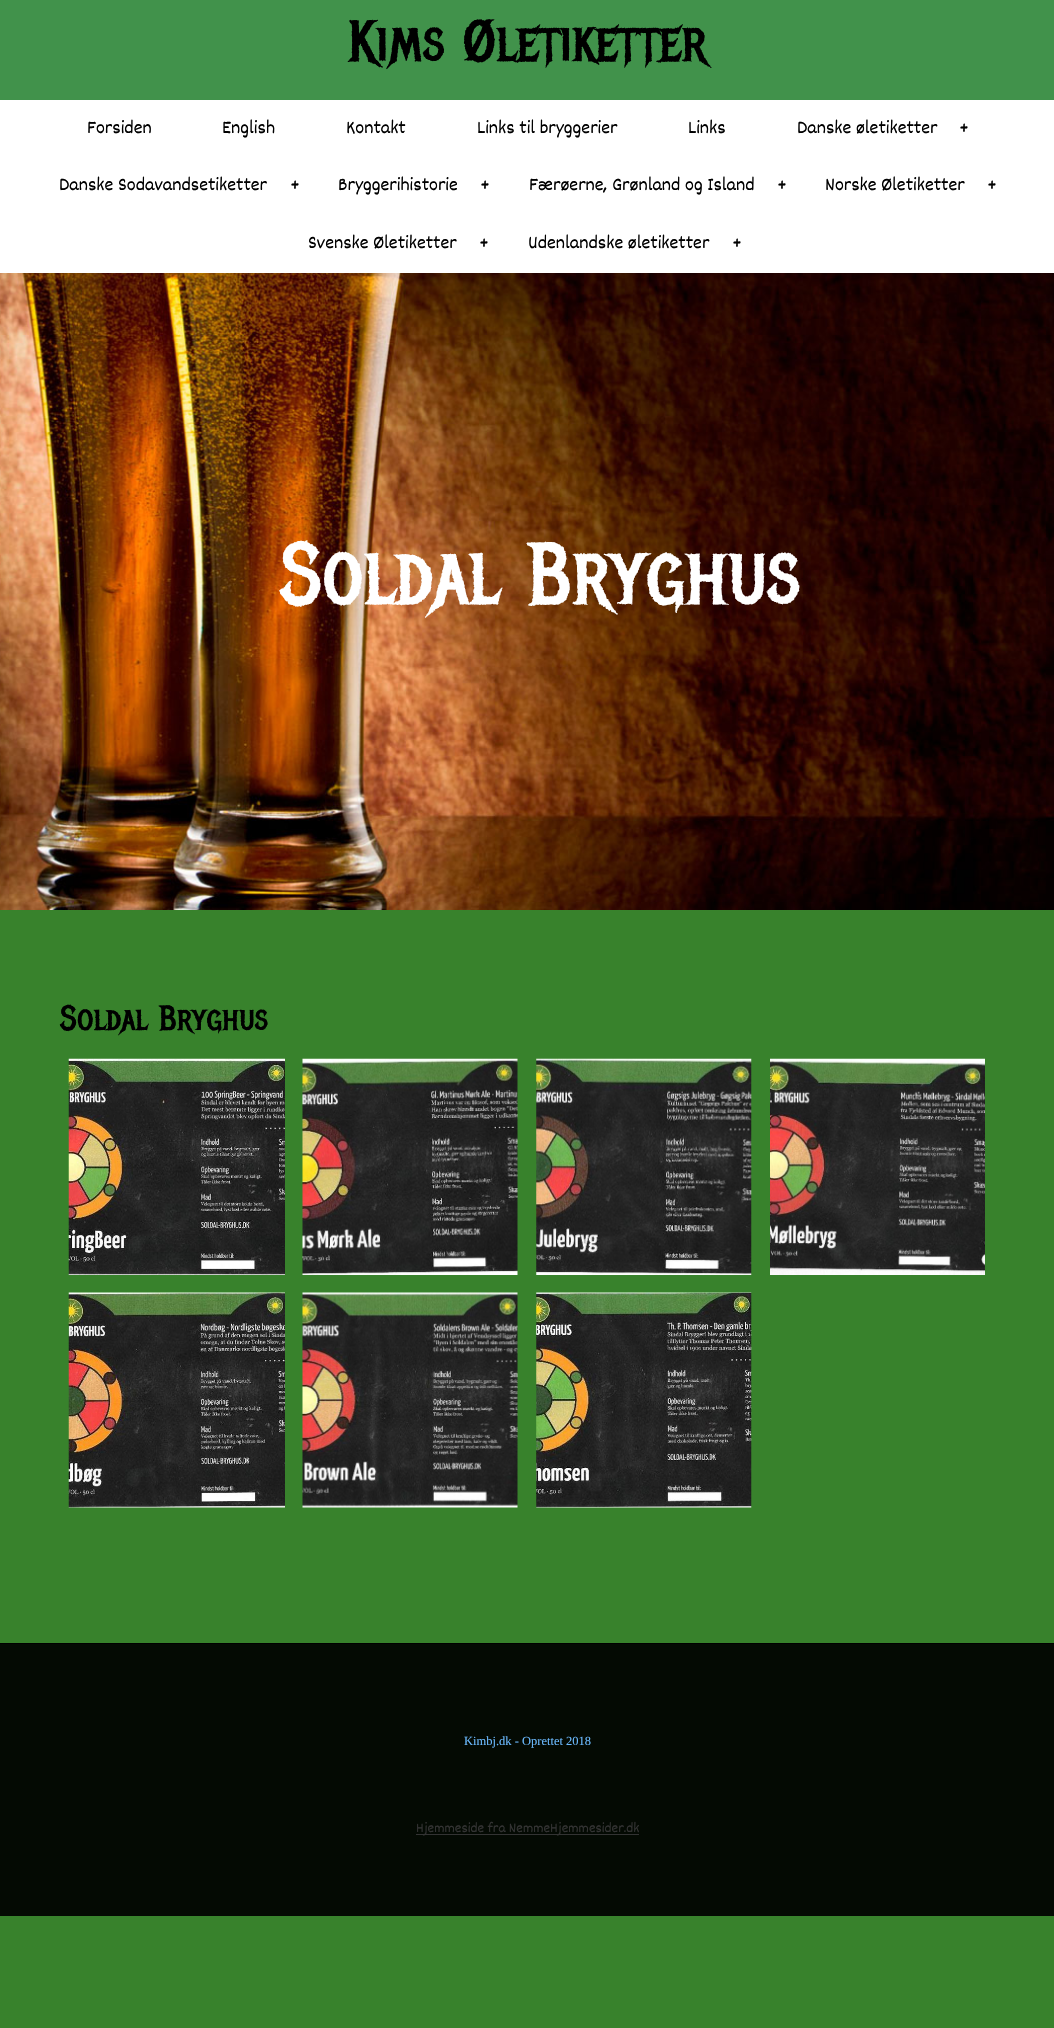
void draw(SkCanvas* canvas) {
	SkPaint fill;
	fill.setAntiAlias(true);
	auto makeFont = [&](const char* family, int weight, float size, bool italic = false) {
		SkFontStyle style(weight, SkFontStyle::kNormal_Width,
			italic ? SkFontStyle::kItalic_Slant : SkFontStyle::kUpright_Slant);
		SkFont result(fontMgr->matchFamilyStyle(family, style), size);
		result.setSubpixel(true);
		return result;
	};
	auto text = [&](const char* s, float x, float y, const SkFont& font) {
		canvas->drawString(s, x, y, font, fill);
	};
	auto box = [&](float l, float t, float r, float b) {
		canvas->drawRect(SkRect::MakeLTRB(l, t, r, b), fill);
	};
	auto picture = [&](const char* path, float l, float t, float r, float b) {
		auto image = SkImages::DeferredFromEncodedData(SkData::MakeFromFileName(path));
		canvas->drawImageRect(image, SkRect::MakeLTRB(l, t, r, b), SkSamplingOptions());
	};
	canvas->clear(0xFF38822C);
	fill.setColor(0xFF41924B);
	box(0, 0, 1054, 100);
	picture("image0.png", 0, 273, 1054, 910);
	fill.setColor(0xFFFFFFFF);
	box(0, 100, 1054, 273);
	picture("image1.png", 68, 1058, 285, 1275);
	picture("image2.png", 302, 1058, 518, 1275);
	picture("image3.png", 536, 1058, 752, 1275);
	picture("image4.png", 770, 1058, 985, 1275);
	picture("image5.png", 68, 1292, 285, 1508);
	picture("image6.png", 302, 1292, 518, 1508);
	picture("image7.png", 536, 1292, 752, 1508);
	fill.setColor(0xFF040A03);
	box(0, 1644, 1054, 1916);
	fill.setColor(0xFF000000);
	box(0, 1643, 1054, 1644);
	fill.setColor(0xFF333333);
	box(416, 1834, 639, 1835);
	auto font1 = makeFont("Metal Mania", 400, 57.5f);
	fill.setColor(0xFF000000);
	text("Kims Øletiketter", 348, 61, font1);
	auto font2 = makeFont("Dekko", 400, 20);
	text("Forsiden", 87, 133, font2);
	text("English", 222, 133, font2);
	text("Kontakt", 346, 133, font2);
	text("Links til bryggerier", 477, 133, font2);
	text("Links", 688, 133, font2);
	text("Danske øletiketter", 797, 133, font2);
	auto font3 = makeFont("Dekko", 400, 22);
	text("+", 959, 133, font3);
	text("Danske Sodavandsetiketter", 59, 190, font2);
	text("+", 290, 190, font3);
	text("Bryggerihistorie", 338, 190, font2);
	text("+", 480, 190, font3);
	text("Færøerne, Grønland og Island", 529, 190, font2);
	text("+", 777, 190, font3);
	text("Norske Øletiketter", 825, 190, font2);
	text("+", 987, 190, font3);
	text("Svenske Øletiketter", 308, 248, font2);
	text("+", 479, 248, font3);
	text("Udenlandske øletiketter", 528, 248, font2);
	text("+", 732, 248, font3);
	auto font4 = makeFont("Metal Mania", 400, 87.5f);
	fill.setColor(0xFFFFFFFF);
	text("Soldal Bryghus", 280, 604, font4);
	auto font5 = makeFont("Metal Mania", 400, 35);
	fill.setColor(0xFF000000);
	text("Soldal Bryghus", 60, 1030, font5);
	auto font6 = makeFont("Liberation Serif", 400, 12.5f);
	fill.setColor(0xFF6BBAFF);
	text("Kimbj.dk - Oprettet 2018", 464, 1745, font6);
	auto font7 = makeFont("Dekko", 400, 15);
	fill.setColor(0xFF333333);
	text("Hjemmeside fra NemmeHjemmesider.dk", 416, 1832, font7);
}
